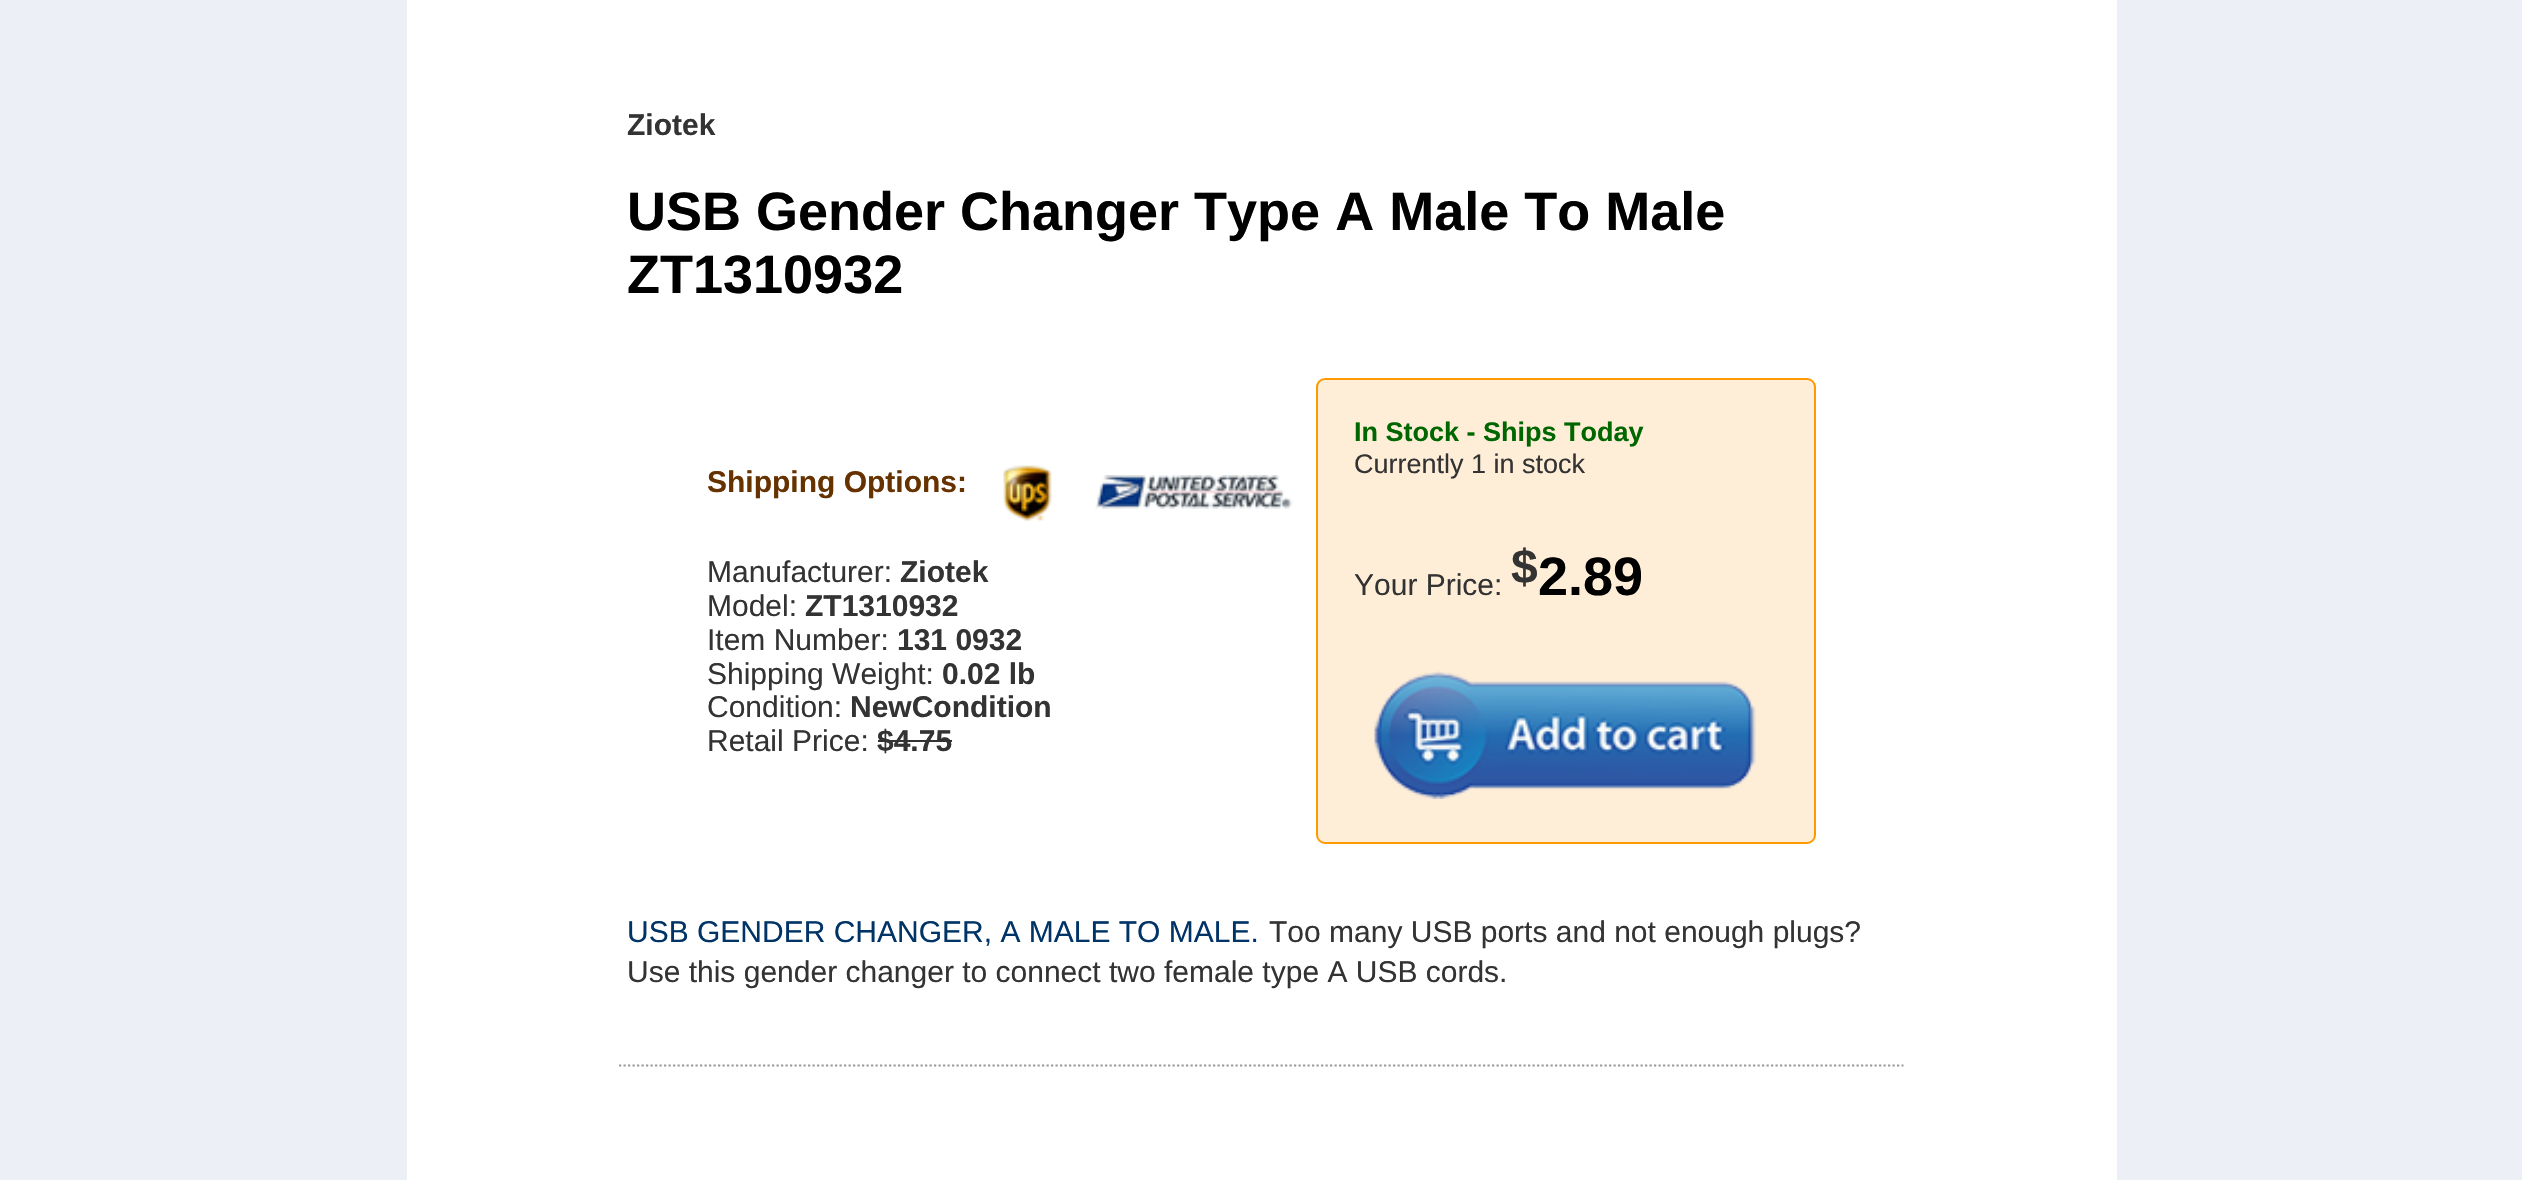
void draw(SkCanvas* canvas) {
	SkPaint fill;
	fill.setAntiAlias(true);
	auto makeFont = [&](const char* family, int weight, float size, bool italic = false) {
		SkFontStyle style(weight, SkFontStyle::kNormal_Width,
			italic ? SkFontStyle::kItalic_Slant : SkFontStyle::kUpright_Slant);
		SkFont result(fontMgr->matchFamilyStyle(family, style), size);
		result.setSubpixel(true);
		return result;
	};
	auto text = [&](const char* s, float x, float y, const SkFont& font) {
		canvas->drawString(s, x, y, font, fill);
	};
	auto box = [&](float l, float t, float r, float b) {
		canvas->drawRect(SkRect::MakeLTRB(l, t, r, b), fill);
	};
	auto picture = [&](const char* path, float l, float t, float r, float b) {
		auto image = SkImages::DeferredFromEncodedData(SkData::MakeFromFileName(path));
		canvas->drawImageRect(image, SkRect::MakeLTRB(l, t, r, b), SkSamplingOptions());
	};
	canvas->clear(0xFFECEFF5);
	fill.setColor(0xFFFFFFFF);
	box(407, 0, 2117, 1180);
	picture("image0.png", 1003, 465, 1052, 521);
	picture("image1.png", 1095, 475, 1294, 509);
	fill.setColor(0xFF333333);
	box(878, 740, 952, 742);
	fill.setColor(0xFFFEEED7);
	canvas->drawRoundRect(SkRect::MakeLTRB(1317, 379, 1815, 843), 8, 8, fill);
	fill.setStyle(SkPaint::kStroke_Style);
	fill.setStrokeWidth(2);
	fill.setColor(0xFFFF9900);
	canvas->drawRoundRect(SkRect::MakeLTRB(1317, 379, 1815, 843), 8, 8, fill);
	picture("image2.png", 1374, 671, 1756, 799);
	fill.setStrokeWidth(2.2f);
	fill.setColor(0xFF999999);
	fill.setPathEffect(SkDashPathEffect::Make({{2.25f, 2.25f}}, 0));
	canvas->drawPath(SkPathBuilder().moveTo(619, 1065.5f).lineTo(1903.5f, 1065.5f).detach(), fill);
	fill.setPathEffect(nullptr);
	auto font1 = makeFont("Liberation Sans", 700, 30);
	fill.setStyle(SkPaint::kFill_Style);
	fill.setColor(0xFF333333);
	text("Ziotek", 627, 135, font1);
	auto font2 = makeFont("Liberation Sans", 700, 54);
	fill.setColor(0xFF000000);
	text("USB Gender Changer Type A Male To Male", 627, 230, font2);
	text("ZT1310932", 627, 293, font2);
	fill.setColor(0xFF663300);
	text("Shipping Options:", 707, 492, font1);
	auto font3 = makeFont("Liberation Sans", 400, 30);
	fill.setColor(0xFF333333);
	text("Manufacturer:", 707, 582, font3);
	text("Ziotek", 900, 582, font1);
	text("Model:", 707, 616, font3);
	text("ZT1310932", 805, 616, font1);
	text("Item Number:", 707, 650, font3);
	text("131 0932", 897, 650, font1);
	text("Shipping Weight:", 707, 684, font3);
	text("0.02 lb", 942, 684, font1);
	text("Condition:", 707, 717, font3);
	text("NewCondition", 850, 717, font1);
	text("Retail Price:", 707, 751, font3);
	text("$4.75", 877, 751, font1);
	auto font4 = makeFont("Liberation Sans", 700, 27);
	fill.setColor(0xFF006600);
	text("In Stock - Ships Today", 1354, 441, font4);
	auto font5 = makeFont("Liberation Sans", 400, 27);
	fill.setColor(0xFF333333);
	text("Currently 1 in stock", 1354, 473, font5);
	text("Your Price:", 1354, 595, font3);
	auto font6 = makeFont("Liberation Sans", 700, 48);
	text("$", 1511, 583, font6);
	fill.setColor(0xFF000000);
	text("2.89", 1538, 595, font2);
	fill.setColor(0xFF003366);
	text("USB GENDER CHANGER, A MALE TO MALE.", 627, 942, font3);
	fill.setColor(0xFF333333);
	text("Too many USB ports and not enough plugs?", 1269, 942, font3);
	text("Use this gender changer to connect two female type A USB cords.", 627, 982, font3);
}
